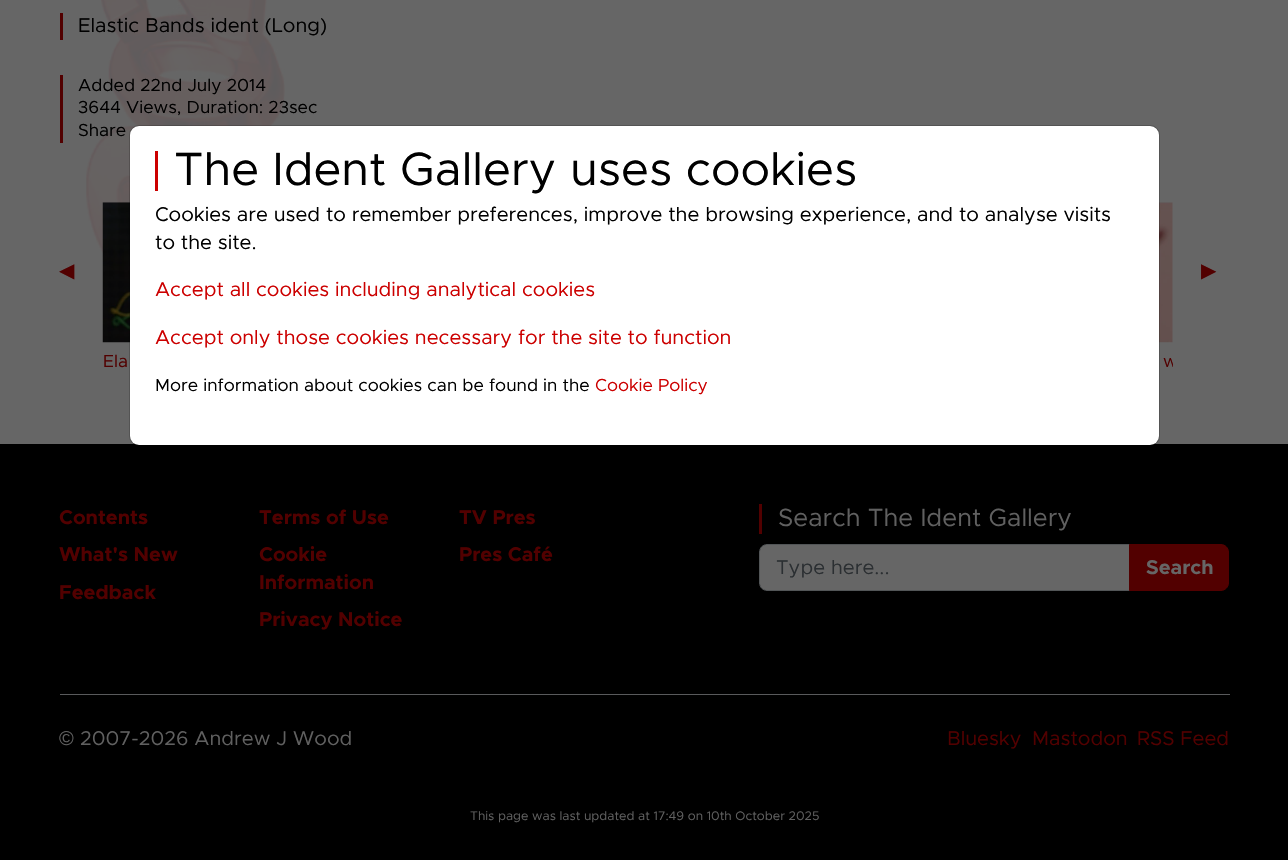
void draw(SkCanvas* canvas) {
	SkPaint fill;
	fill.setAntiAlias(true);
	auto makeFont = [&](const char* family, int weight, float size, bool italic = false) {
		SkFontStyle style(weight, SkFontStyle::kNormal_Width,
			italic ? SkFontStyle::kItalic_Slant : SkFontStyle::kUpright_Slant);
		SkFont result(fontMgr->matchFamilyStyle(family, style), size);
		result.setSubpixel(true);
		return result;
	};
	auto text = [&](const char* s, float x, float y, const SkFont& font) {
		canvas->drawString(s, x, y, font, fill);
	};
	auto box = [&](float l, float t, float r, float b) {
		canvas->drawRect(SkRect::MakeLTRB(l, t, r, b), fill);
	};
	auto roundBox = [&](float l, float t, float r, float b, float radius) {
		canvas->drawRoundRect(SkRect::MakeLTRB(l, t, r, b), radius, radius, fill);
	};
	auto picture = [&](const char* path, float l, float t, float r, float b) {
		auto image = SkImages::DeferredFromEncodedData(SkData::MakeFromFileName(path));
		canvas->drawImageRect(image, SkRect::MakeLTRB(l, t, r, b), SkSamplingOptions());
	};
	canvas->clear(0xFF666666);
	picture("image0.png", 86, 0, 285, 254);
	fill.setColor(0xFF520000);
	box(60, 13, 63, 40);
	box(60, 75, 63, 143);
	picture("image1.png", 102, 202, 130, 343);
	picture("image2.png", 1159, 202, 1173, 343);
	fill.setColor(0xFF000000);
	box(0, 444, 1288, 860);
	fill.setColor(0xFFFFFFFF);
	roundBox(130, 126, 1159, 445, 9);
	fill.setStyle(SkPaint::kStroke_Style);
	fill.setStrokeWidth(1);
	fill.setColor(0x2E000000);
	canvas->drawRoundRect(SkRect::MakeLTRB(129.5f, 125.5f, 1159.5f, 445.5f), 9.5f, 9.5f, fill);
	fill.setStyle(SkPaint::kFill_Style);
	fill.setColor(0xFFCC0000);
	box(155, 151, 158, 191);
	fill.setColor(0xFF520000);
	box(759, 504, 762, 534);
	fill.setColor(0xFF666666);
	canvas->drawPath(SkPathBuilder().moveTo(766, 545).lineTo(1129, 545).lineTo(1129, 590).lineTo(766, 590).cubicTo(762.5f, 590, 760, 587.5f, 760, 584).lineTo(760, 551).cubicTo(760, 547.5f, 762.5f, 545, 766, 545).close().detach(), fill);
	fill.setStyle(SkPaint::kStroke_Style);
	fill.setColor(0xFF525557);
	canvas->drawPath(SkPathBuilder().moveTo(767, 544.5f).lineTo(1129.5f, 544.5f).lineTo(1129.5f, 590.5f).lineTo(767, 590.5f).cubicTo(763, 590.5f, 759.5f, 587, 759.5f, 583).lineTo(759.5f, 552).cubicTo(759.5f, 548, 763, 544.5f, 767, 544.5f).close().detach(), fill);
	fill.setStyle(SkPaint::kFill_Style);
	fill.setColor(0xFF520000);
	canvas->drawPath(SkPathBuilder().moveTo(1129.5f, 544.5f).lineTo(1221, 544.5f).cubicTo(1225, 544.5f, 1228.5f, 548, 1228.5f, 552).lineTo(1228.5f, 583).cubicTo(1228.5f, 587, 1225, 590.5f, 1221, 590.5f).lineTo(1129.5f, 590.5f).close().detach(), fill);
	fill.setStyle(SkPaint::kStroke_Style);
	canvas->drawPath(SkPathBuilder().moveTo(1129.5f, 544.5f).lineTo(1221, 544.5f).cubicTo(1225, 544.5f, 1228.5f, 548, 1228.5f, 552).lineTo(1228.5f, 583).cubicTo(1228.5f, 587, 1225, 590.5f, 1221, 590.5f).lineTo(1129.5f, 590.5f).close().detach(), fill);
	fill.setStyle(SkPaint::kFill_Style);
	fill.setColor(0xFF595A5C);
	box(60, 694, 1230, 695);
	auto font1 = makeFont("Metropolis", 400, 20);
	fill.setColor(0xFF000000);
	text("Elastic Bands ident (Long)", 78, 32, font1);
	auto font2 = makeFont("Metropolis", 400, 17.5f);
	text("Added 22nd July 2014", 78, 91, font2);
	text("3644 Views, Duration: 23sec", 78, 113, font2);
	text("Share", 78, 136, font2);
	auto font3 = makeFont("DejaVu Sans", 400, 20);
	fill.setColor(0xFF520000);
	text("◀", 59, 277, font3);
	text("▶", 1201, 277, font3);
	text("Ela", 103, 367, font2);
	canvas->save();
	canvas->clipRect(SkRect::MakeLTRB(103, 203, 1173, 376));
	text("w", 1163, 367, font2);
	canvas->restore();
	auto font4 = makeFont("Metropolis", 400, 46.8f);
	fill.setColor(0xFF000000);
	text("The Ident Gallery uses cookies", 174, 185, font4);
	text("Cookies are used to remember preferences, improve the browsing experience, and to analyse visits", 155, 221, font1);
	text("to the site.", 155, 249, font1);
	fill.setColor(0xFFCC0000);
	text("Accept all cookies including analytical cookies", 155, 296, font1);
	text("Accept only those cookies necessary for the site to function", 155, 344, font1);
	fill.setColor(0xFF000000);
	text("More information about cookies can be found in the", 155, 391, font2);
	fill.setColor(0xFFCC0000);
	text("Cookie Policy", 595, 391, font2);
	auto font5 = makeFont("Metropolis", 700, 20);
	fill.setColor(0xFF520000);
	text("Contents", 59, 524, font5);
	text("What's New", 59, 561, font5);
	text("Feedback", 59, 599, font5);
	text("Terms of Use", 259, 524, font5);
	text("Cookie", 259, 561, font5);
	text("Information", 259, 589, font5);
	text("Privacy Notice", 259, 626, font5);
	text("TV Pres", 459, 524, font5);
	text("Pres Café", 459, 561, font5);
	auto font6 = makeFont("Metropolis", 400, 25);
	fill.setColor(0xFF606060);
	text("Search The Ident Gallery", 778, 526, font6);
	fill.setColor(0xFF2B2F32);
	text("Type here...", 776, 574, font1);
	fill.setColor(0xFF666666);
	text("Search", 1146, 574, font5);
	auto font7 = makeFont("Liberation Sans", 400, 20);
	fill.setColor(0xFF606060);
	text("©", 59, 745, font7);
	text("2007-2026 Andrew J Wood", 80, 745, font1);
	fill.setColor(0xFF520000);
	text("Bluesky", 947, 745, font1);
	text("Mastodon", 1032, 745, font1);
	text("RSS Feed", 1137, 745, font1);
	auto font8 = makeFont("Metropolis", 400, 12.5f);
	fill.setColor(0xFF606060);
	text("This page was last updated at 17:49 on 10th October 2025", 470, 820, font8);
}
